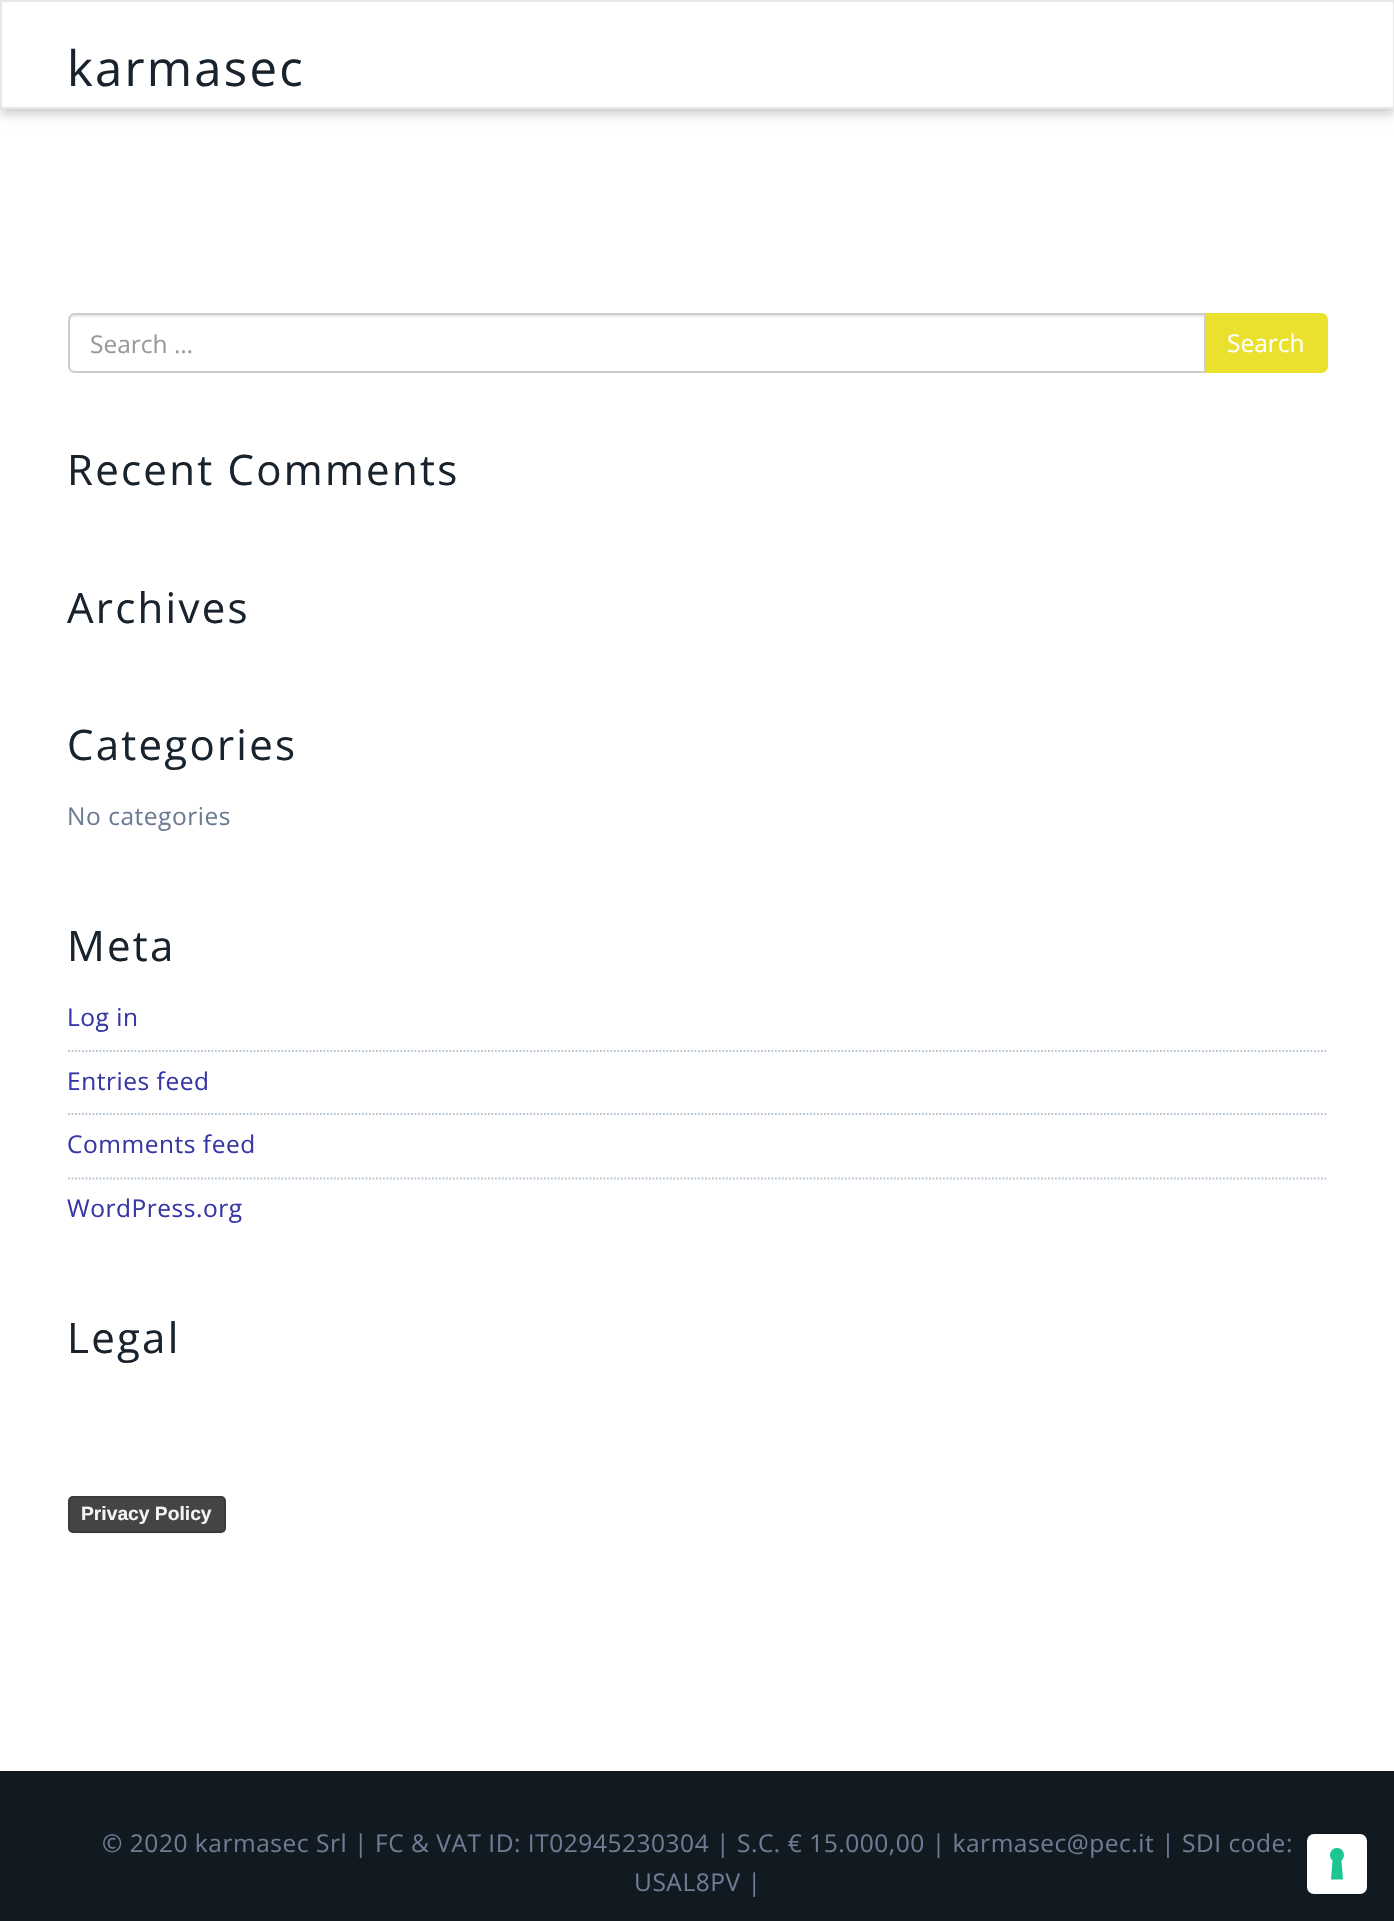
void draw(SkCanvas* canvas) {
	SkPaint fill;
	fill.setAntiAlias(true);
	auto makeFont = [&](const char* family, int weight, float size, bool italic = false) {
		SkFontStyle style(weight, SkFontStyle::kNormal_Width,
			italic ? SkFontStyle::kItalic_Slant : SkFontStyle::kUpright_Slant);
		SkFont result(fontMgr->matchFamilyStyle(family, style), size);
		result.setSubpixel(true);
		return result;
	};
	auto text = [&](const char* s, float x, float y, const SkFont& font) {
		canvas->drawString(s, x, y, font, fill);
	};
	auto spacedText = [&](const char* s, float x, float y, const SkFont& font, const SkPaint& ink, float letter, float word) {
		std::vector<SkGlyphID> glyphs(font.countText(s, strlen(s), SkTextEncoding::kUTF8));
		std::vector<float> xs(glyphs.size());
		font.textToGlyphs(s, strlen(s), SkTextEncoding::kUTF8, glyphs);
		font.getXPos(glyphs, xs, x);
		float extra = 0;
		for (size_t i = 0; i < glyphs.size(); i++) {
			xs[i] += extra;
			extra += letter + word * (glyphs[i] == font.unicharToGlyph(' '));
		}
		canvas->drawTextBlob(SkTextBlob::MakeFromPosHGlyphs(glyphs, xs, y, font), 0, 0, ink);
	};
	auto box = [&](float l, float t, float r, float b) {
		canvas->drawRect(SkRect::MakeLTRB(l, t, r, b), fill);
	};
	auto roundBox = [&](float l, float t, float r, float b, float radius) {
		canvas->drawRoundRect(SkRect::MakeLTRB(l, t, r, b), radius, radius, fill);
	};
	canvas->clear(0xFFFFFFFF);
	fill.setColor(0x33000000);
	fill.setMaskFilter(SkMaskFilter::MakeBlur(kNormal_SkBlurStyle, 5));
	canvas->drawRect(SkRect::MakeLTRB(0, 5, 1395, 114), fill);
	fill.setMaskFilter(nullptr);
	fill.setColor(0xFFFFFFFF);
	canvas->drawRect(SkRect::MakeLTRB(1, 1, 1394, 108), fill);
	fill.setStyle(SkPaint::kStroke_Style);
	fill.setStrokeWidth(2);
	fill.setColor(0xFFE7E7E7);
	canvas->drawRect(SkRect::MakeLTRB(1, 1, 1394, 108), fill);
	fill.setStyle(SkPaint::kFill_Style);
	fill.setColor(0xFFE9E12D);
	canvas->drawPath(SkPathBuilder().moveTo(1205, 314).lineTo(1321, 314).cubicTo(1324.5f, 314, 1327, 316.5f, 1327, 320).lineTo(1327, 366).cubicTo(1327, 369.5f, 1324.5f, 372, 1321, 372).lineTo(1205, 372).close().detach(), fill);
	fill.setStyle(SkPaint::kStroke_Style);
	canvas->drawPath(SkPathBuilder().moveTo(1205, 314).lineTo(1321, 314).cubicTo(1324.5f, 314, 1327, 316.5f, 1327, 320).lineTo(1327, 366).cubicTo(1327, 369.5f, 1324.5f, 372, 1321, 372).lineTo(1205, 372).close().detach(), fill);
	fill.setStyle(SkPaint::kFill_Style);
	fill.setColor(0xFFFFFFFF);
	canvas->drawPath(SkPathBuilder().moveTo(75, 313).lineTo(1206, 313).lineTo(1206, 373).lineTo(75, 373).cubicTo(71, 373, 68, 370, 68, 366).lineTo(68, 320).cubicTo(68, 316, 71, 313, 75, 313).close().detach(), fill);
	fill.setColor(0xFFECECEC);
	canvas->drawPath(SkPathBuilder().moveTo(75, 317).lineTo(1204, 317).lineTo(1204, 315).lineTo(75, 315).cubicTo(72, 315, 70, 317, 70, 320).lineTo(70, 322).cubicTo(70, 319, 72, 317, 75, 317).close().detach(), fill);
	fill.setStyle(SkPaint::kStroke_Style);
	fill.setColor(0xFFCCCCCC);
	canvas->drawPath(SkPathBuilder().moveTo(75, 314).lineTo(1205, 314).lineTo(1205, 372).lineTo(75, 372).cubicTo(71.5f, 372, 69, 369.5f, 69, 366).lineTo(69, 320).cubicTo(69, 316.5f, 71.5f, 314, 75, 314).close().detach(), fill);
	fill.setStrokeWidth(1.8f);
	fill.setColor(0xFFB7C6D3);
	fill.setPathEffect(SkDashPathEffect::Make({{1.75f, 1.75f}}, 0));
	canvas->drawPath(SkPathBuilder().moveTo(68, 1051).lineTo(1328, 1051).detach(), fill);
	fill.setPathEffect(nullptr);
	fill.setPathEffect(SkDashPathEffect::Make({{1.75f, 1.75f}}, 0));
	canvas->drawPath(SkPathBuilder().moveTo(68, 1114).lineTo(1328, 1114).detach(), fill);
	fill.setPathEffect(nullptr);
	fill.setPathEffect(SkDashPathEffect::Make({{1.75f, 1.75f}}, 0));
	canvas->drawPath(SkPathBuilder().moveTo(68, 1178.5f).lineTo(1328, 1178.5f).detach(), fill);
	fill.setPathEffect(nullptr);
	fill.setStyle(SkPaint::kFill_Style);
	fill.setColor(0x26000000);
	fill.setMaskFilter(SkMaskFilter::MakeBlur(kNormal_SkBlurStyle, 1));
	canvas->drawRoundRect(SkRect::MakeLTRB(70, 1500, 224, 1533), 4, 4, fill);
	fill.setMaskFilter(nullptr);
	fill.setColor(0xFF444444);
	roundBox(68, 1496, 226, 1533, 5);
	fill.setStyle(SkPaint::kStroke_Style);
	fill.setStrokeWidth(2);
	fill.setColor(0x26000000);
	canvas->drawRoundRect(SkRect::MakeLTRB(69, 1497, 225, 1532), 4, 4, fill);
	fill.setStyle(SkPaint::kFill_Style);
	fill.setColor(0xFF121A21);
	box(0, 1771, 1394, 1921);
	fill.setStyle(SkPaint::kStroke_Style);
	fill.setColor(0xFF0F161C);
	canvas->drawRoundRect(SkRect::MakeLTRB(1307, 1833, 1368, 1894), 8, 8, fill);
	fill.setStyle(SkPaint::kFill_Style);
	fill.setColor(0xFFFFFFFF);
	roundBox(1307, 1834, 1367, 1894, 7);
	fill.setColor(0xFF1CC691);
	canvas->drawPath(SkPathBuilder(SkPathFillType::kEvenOdd).moveTo(1337, 1848).cubicTo(1343.5f, 1848, 1346.5f, 1856, 1341.5f, 1860.5f).lineTo(1343, 1879.5f).lineTo(1331, 1879.5f).lineTo(1332.5f, 1860.5f).cubicTo(1327.5f, 1856, 1330.5f, 1848, 1337, 1848).close().detach(), fill);
	auto font1 = makeFont("Open Sans", 400, 49);
	fill.setColor(0xFF19232D);
	spacedText("karmasec", 67, 86, font1, fill, 2.25f, 0);
	auto font2 = makeFont("Open Sans", 400, 24.5f);
	fill.setColor(0xFF999999);
	text("Search …", 90, 353, font2);
	fill.setColor(0xFFFFFFFF);
	text("Search", 1227, 352, font2);
	auto font3 = makeFont("Open Sans", 400, 42);
	fill.setColor(0xFF19232D);
	spacedText("Recent Comments", 67, 485, font3, fill, 2.25f, 0);
	spacedText("Archives", 67, 623, font3, fill, 2.25f, 0);
	spacedText("Categories", 67, 760, font3, fill, 2.25f, 0);
	fill.setColor(0xFF6B7C93);
	spacedText("No categories", 67, 825, font2, fill, 0.53f, 0);
	fill.setColor(0xFF19232D);
	spacedText("Meta", 67, 961, font3, fill, 2.25f, 0);
	fill.setColor(0xFF3737A5);
	spacedText("Log in", 67, 1026, font2, fill, 0.53f, 0);
	spacedText("Entries feed", 67, 1090, font2, fill, 0.53f, 0);
	spacedText("Comments feed", 67, 1153, font2, fill, 0.53f, 0);
	spacedText("WordPress.org", 67, 1217, font2, fill, 0.53f, 0);
	fill.setColor(0xFF19232D);
	spacedText("Legal", 67, 1353, font3, fill, 2.25f, 0);
	auto font4 = makeFont("Liberation Sans", 700, 19.25f);
	fill.setColor(0xFFF4F4F4);
	text("Privacy Policy", 81, 1520, font4);
	fill.setColor(0xFF6B7C93);
	spacedText("© 2020 karmasec Srl | FC & VAT ID: IT02945230304 | S.C. € 15.000,00 | karmasec@pec.it | SDI code:", 102, 1852, font2, fill, 0.53f, 0);
	spacedText("USAL8PV |", 634, 1891, font2, fill, 0.53f, 0);
}
